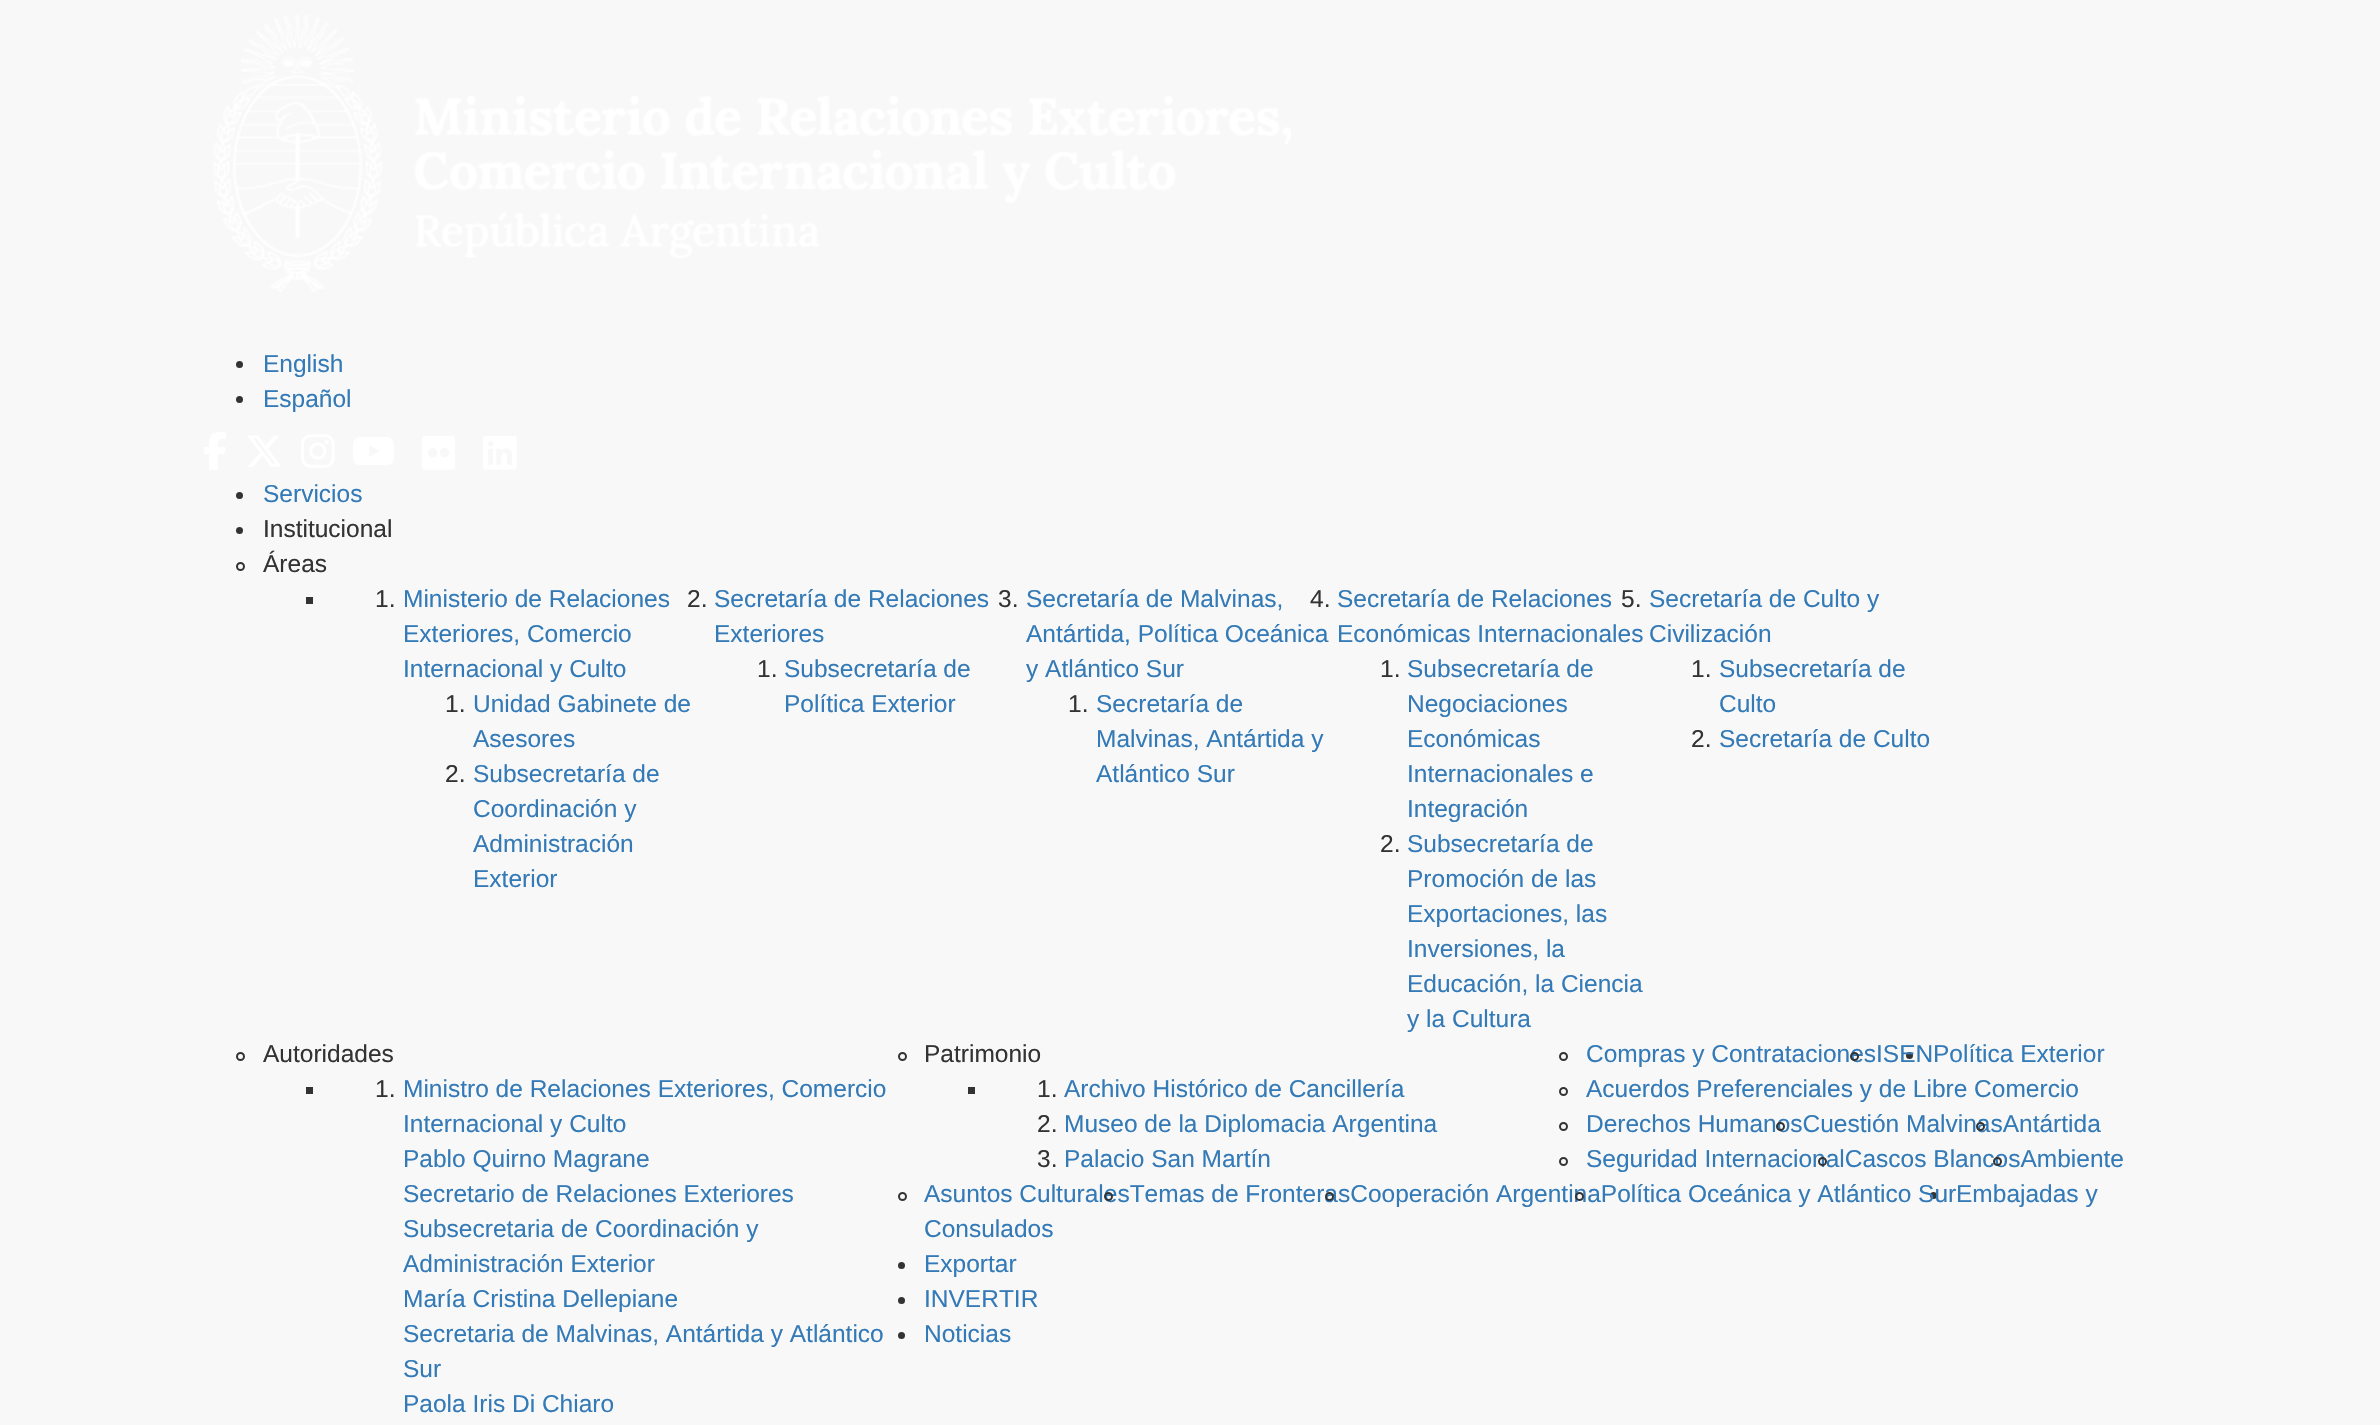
void draw(SkCanvas* canvas) {
	SkPaint fill;
	fill.setAntiAlias(true);
	auto makeFont = [&](const char* family, int weight, float size, bool italic = false) {
		SkFontStyle style(weight, SkFontStyle::kNormal_Width,
			italic ? SkFontStyle::kItalic_Slant : SkFontStyle::kUpright_Slant);
		SkFont result(fontMgr->matchFamilyStyle(family, style), size);
		result.setSubpixel(true);
		return result;
	};
	auto text = [&](const char* s, float x, float y, const SkFont& font) {
		canvas->drawString(s, x, y, font, fill);
	};
	auto box = [&](float l, float t, float r, float b) {
		canvas->drawRect(SkRect::MakeLTRB(l, t, r, b), fill);
	};
	auto picture = [&](const char* path, float l, float t, float r, float b) {
		auto image = SkImages::DeferredFromEncodedData(SkData::MakeFromFileName(path));
		canvas->drawImageRect(image, SkRect::MakeLTRB(l, t, r, b), SkSamplingOptions());
	};
	canvas->clear(0xFFF8F8F8);
	picture("image0.png", 213, 15, 1291, 292);
	fill.setColor(0xFF333333);
	canvas->drawCircle(239.5f, 364.5f, 3.5f, fill);
	canvas->drawCircle(239.5f, 399.5f, 3.5f, fill);
	picture("image1.png", 204, 432, 226, 470);
	picture("image2.png", 248, 435, 281, 467);
	picture("image3.png", 301, 434, 335, 468);
	picture("image4.png", 353, 437, 394, 465);
	picture("image5.png", 422, 436, 455, 470);
	picture("image6.png", 483, 436, 517, 470);
	canvas->drawCircle(239.5f, 495.5f, 3.5f, fill);
	canvas->drawCircle(239.5f, 530.5f, 3.5f, fill);
	fill.setStyle(SkPaint::kStroke_Style);
	fill.setStrokeWidth(2);
	canvas->drawCircle(240.5f, 566.5f, 3.5f, fill);
	fill.setStyle(SkPaint::kFill_Style);
	box(306, 597, 313, 604);
	fill.setStyle(SkPaint::kStroke_Style);
	canvas->drawCircle(240.5f, 1056.5f, 3.5f, fill);
	fill.setStyle(SkPaint::kFill_Style);
	box(306, 1087, 313, 1094);
	fill.setStyle(SkPaint::kStroke_Style);
	canvas->drawCircle(902.5f, 1056.5f, 3.5f, fill);
	fill.setStyle(SkPaint::kFill_Style);
	box(968, 1087, 975, 1094);
	fill.setStyle(SkPaint::kStroke_Style);
	canvas->drawCircle(1563.5f, 1056.5f, 3.5f, fill);
	fill.setStyle(SkPaint::kFill_Style);
	canvas->drawCircle(1909.5f, 1055.5f, 3.5f, fill);
	fill.setStyle(SkPaint::kStroke_Style);
	canvas->drawCircle(1563.5f, 1091.5f, 3.5f, fill);
	canvas->drawCircle(1563.5f, 1126.5f, 3.5f, fill);
	canvas->drawCircle(1563.5f, 1161.5f, 3.5f, fill);
	canvas->drawCircle(902.5f, 1196.5f, 3.5f, fill);
	fill.setStyle(SkPaint::kFill_Style);
	canvas->drawCircle(1933.5f, 1195.5f, 3.5f, fill);
	canvas->drawCircle(901.5f, 1265.5f, 3.5f, fill);
	canvas->drawCircle(901.5f, 1300.5f, 3.5f, fill);
	canvas->drawCircle(901.5f, 1335.5f, 3.5f, fill);
	auto font1 = makeFont("Liberation Sans", 400, 24.5f);
	fill.setColor(0xFF337AB7);
	text("English", 263, 372, font1);
	text("Español", 263, 407, font1);
	text("Servicios", 263, 502, font1);
	fill.setColor(0xFF333333);
	text("Institucional", 263, 537, font1);
	text("Áreas", 263, 572, font1);
	text("1.", 375, 607, font1);
	fill.setColor(0xFF337AB7);
	text("Ministerio de Relaciones", 403, 607, font1);
	text("Exteriores, Comercio", 403, 642, font1);
	text("Internacional y Culto", 403, 677, font1);
	fill.setColor(0xFF333333);
	text("1.", 445, 712, font1);
	fill.setColor(0xFF337AB7);
	text("Unidad Gabinete de", 473, 712, font1);
	text("Asesores", 473, 747, font1);
	fill.setColor(0xFF333333);
	text("2.", 445, 782, font1);
	fill.setColor(0xFF337AB7);
	text("Subsecretaría de", 473, 782, font1);
	text("Coordinación y", 473, 817, font1);
	text("Administración", 473, 852, font1);
	text("Exterior", 473, 887, font1);
	fill.setColor(0xFF333333);
	text("2.", 687, 607, font1);
	fill.setColor(0xFF337AB7);
	text("Secretaría de Relaciones", 714, 607, font1);
	text("Exteriores", 714, 642, font1);
	fill.setColor(0xFF333333);
	text("1.", 757, 677, font1);
	fill.setColor(0xFF337AB7);
	text("Subsecretaría de", 784, 677, font1);
	text("Política Exterior", 784, 712, font1);
	fill.setColor(0xFF333333);
	text("3.", 998, 607, font1);
	fill.setColor(0xFF337AB7);
	text("Secretaría de Malvinas,", 1026, 607, font1);
	text("Antártida, Política Oceánica", 1026, 642, font1);
	text("y Atlántico Sur", 1026, 677, font1);
	fill.setColor(0xFF333333);
	text("1.", 1068, 712, font1);
	fill.setColor(0xFF337AB7);
	text("Secretaría de", 1096, 712, font1);
	text("Malvinas, Antártida y", 1096, 747, font1);
	text("Atlántico Sur", 1096, 782, font1);
	fill.setColor(0xFF333333);
	text("4.", 1310, 607, font1);
	fill.setColor(0xFF337AB7);
	text("Secretaría de Relaciones", 1337, 607, font1);
	text("Económicas Internacionales", 1337, 642, font1);
	fill.setColor(0xFF333333);
	text("1.", 1380, 677, font1);
	fill.setColor(0xFF337AB7);
	text("Subsecretaría de", 1407, 677, font1);
	text("Negociaciones", 1407, 712, font1);
	text("Económicas", 1407, 747, font1);
	text("Internacionales e", 1407, 782, font1);
	text("Integración", 1407, 817, font1);
	fill.setColor(0xFF333333);
	text("2.", 1380, 852, font1);
	fill.setColor(0xFF337AB7);
	text("Subsecretaría de", 1407, 852, font1);
	text("Promoción de las", 1407, 887, font1);
	text("Exportaciones, las", 1407, 922, font1);
	text("Inversiones, la", 1407, 957, font1);
	text("Educación, la Ciencia", 1407, 992, font1);
	text("y la Cultura", 1407, 1027, font1);
	fill.setColor(0xFF333333);
	text("5.", 1621, 607, font1);
	fill.setColor(0xFF337AB7);
	text("Secretaría de Culto y", 1649, 607, font1);
	text("Civilización", 1649, 642, font1);
	fill.setColor(0xFF333333);
	text("1.", 1691, 677, font1);
	fill.setColor(0xFF337AB7);
	text("Subsecretaría de", 1719, 677, font1);
	text("Culto", 1719, 712, font1);
	fill.setColor(0xFF333333);
	text("2.", 1691, 747, font1);
	fill.setColor(0xFF337AB7);
	text("Secretaría de Culto", 1719, 747, font1);
	fill.setColor(0xFF333333);
	text("Autoridades", 263, 1062, font1);
	text("1.", 375, 1097, font1);
	fill.setColor(0xFF337AB7);
	text("Ministro de Relaciones Exteriores, Comercio", 403, 1097, font1);
	text("Internacional y Culto", 403, 1132, font1);
	text("Pablo Quirno Magrane", 403, 1167, font1);
	text("Secretario de Relaciones Exteriores", 403, 1202, font1);
	text("Subsecretaria de Coordinación y", 403, 1237, font1);
	text("Administración Exterior", 403, 1272, font1);
	text("María Cristina Dellepiane", 403, 1307, font1);
	text("Secretaria de Malvinas, Antártida y Atlántico", 403, 1342, font1);
	text("Sur", 403, 1377, font1);
	text("Paola Iris Di Chiaro", 403, 1412, font1);
	fill.setColor(0xFF333333);
	text("Patrimonio", 924, 1062, font1);
	text("1.", 1037, 1097, font1);
	fill.setColor(0xFF337AB7);
	text("Archivo Histórico de Cancillería", 1064, 1097, font1);
	fill.setColor(0xFF333333);
	text("2.", 1037, 1132, font1);
	fill.setColor(0xFF337AB7);
	text("Museo de la Diplomacia Argentina", 1064, 1132, font1);
	fill.setColor(0xFF333333);
	text("3.", 1037, 1167, font1);
	fill.setColor(0xFF337AB7);
	text("Palacio San Martín", 1064, 1167, font1);
	text("Compras y ContratacionesISEN", 1586, 1062, font1);
	fill.setStyle(SkPaint::kStroke_Style);
	fill.setColor(0xFF333333);
	canvas->drawCircle(1854.5f, 1056.5f, 3.5f, fill);
	fill.setStyle(SkPaint::kFill_Style);
	fill.setColor(0xFF337AB7);
	text("Política Exterior", 1933, 1062, font1);
	text("Acuerdos Preferenciales y de Libre Comercio", 1586, 1097, font1);
	text("Derechos HumanosCuestión MalvinasAntártida", 1586, 1132, font1);
	fill.setStyle(SkPaint::kStroke_Style);
	fill.setColor(0xFF333333);
	canvas->drawCircle(1780.5f, 1126.5f, 3.5f, fill);
	canvas->drawCircle(1980.5f, 1126.5f, 3.5f, fill);
	fill.setStyle(SkPaint::kFill_Style);
	fill.setColor(0xFF337AB7);
	text("Seguridad InternacionalCascos BlancosAmbiente", 1586, 1167, font1);
	fill.setStyle(SkPaint::kStroke_Style);
	fill.setColor(0xFF333333);
	canvas->drawCircle(1822.5f, 1161.5f, 3.5f, fill);
	canvas->drawCircle(1997.5f, 1161.5f, 3.5f, fill);
	fill.setStyle(SkPaint::kFill_Style);
	fill.setColor(0xFF337AB7);
	text("Asuntos CulturalesTemas de FronterasCooperación ArgentinaPolítica Oceánica y Atlántico Sur", 924, 1202, font1);
	fill.setStyle(SkPaint::kStroke_Style);
	fill.setColor(0xFF333333);
	canvas->drawCircle(1108.5f, 1196.5f, 3.5f, fill);
	canvas->drawCircle(1329.5f, 1196.5f, 3.5f, fill);
	canvas->drawCircle(1579.5f, 1196.5f, 3.5f, fill);
	fill.setStyle(SkPaint::kFill_Style);
	fill.setColor(0xFF337AB7);
	text("Embajadas y", 1956, 1202, font1);
	text("Consulados", 924, 1237, font1);
	text("Exportar", 924, 1272, font1);
	text("INVERTIR", 924, 1307, font1);
	text("Noticias", 924, 1342, font1);
}
